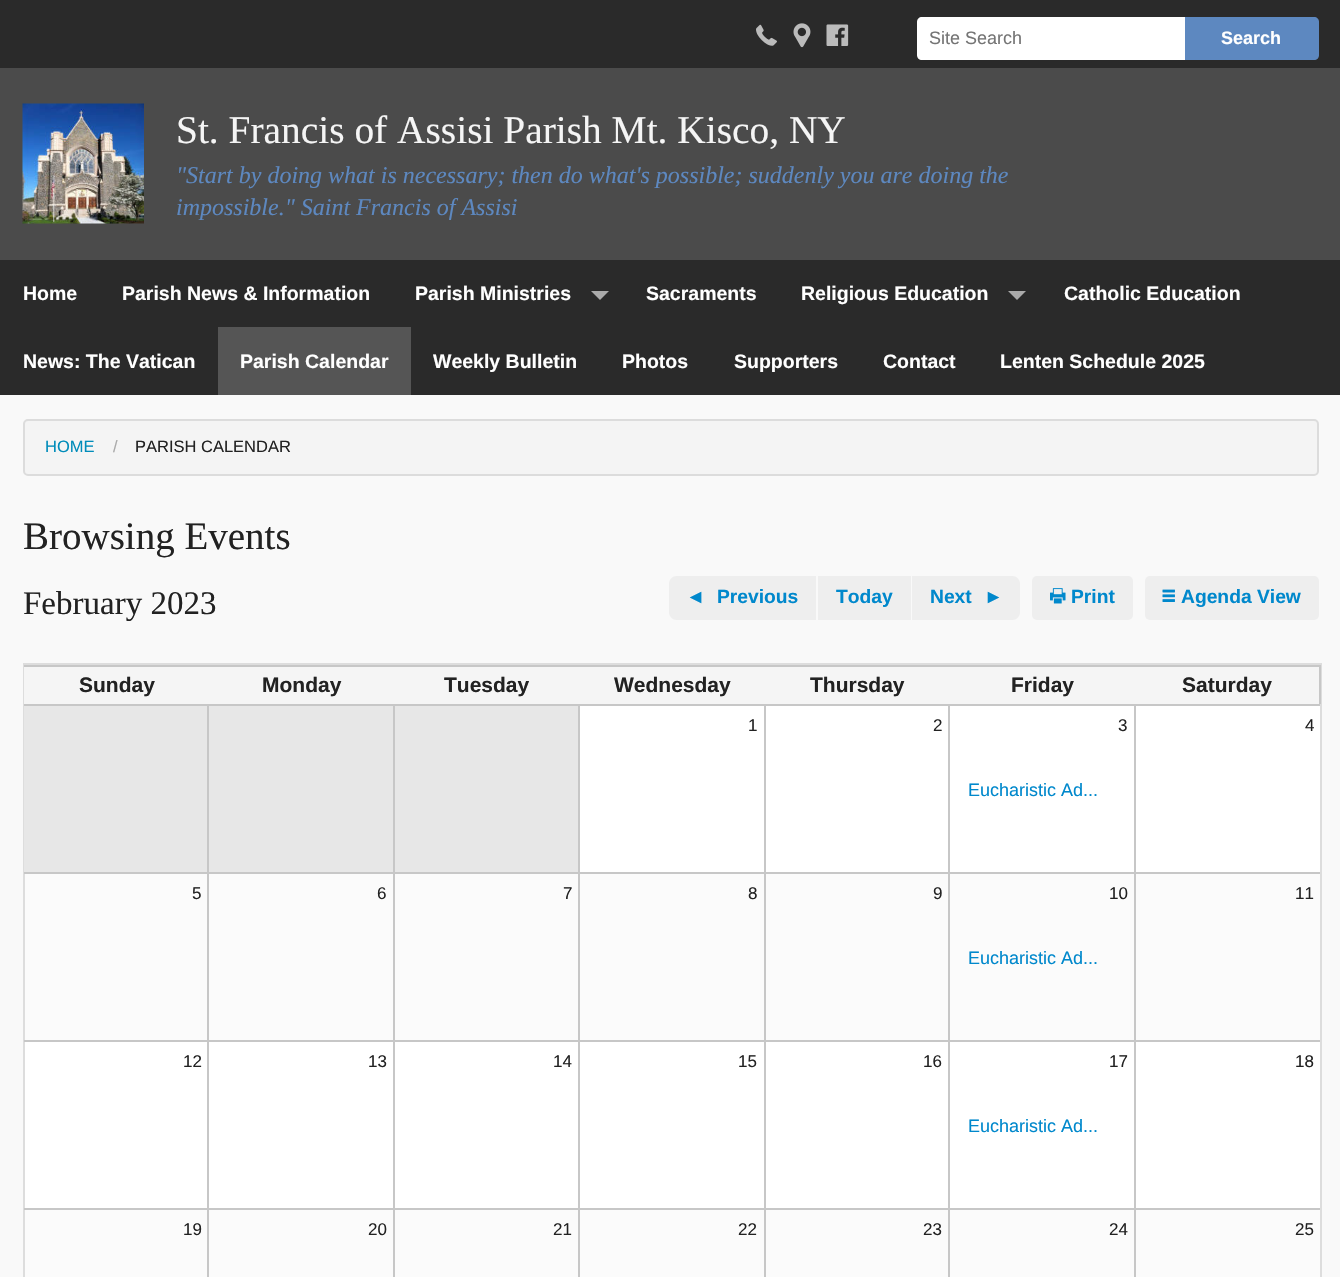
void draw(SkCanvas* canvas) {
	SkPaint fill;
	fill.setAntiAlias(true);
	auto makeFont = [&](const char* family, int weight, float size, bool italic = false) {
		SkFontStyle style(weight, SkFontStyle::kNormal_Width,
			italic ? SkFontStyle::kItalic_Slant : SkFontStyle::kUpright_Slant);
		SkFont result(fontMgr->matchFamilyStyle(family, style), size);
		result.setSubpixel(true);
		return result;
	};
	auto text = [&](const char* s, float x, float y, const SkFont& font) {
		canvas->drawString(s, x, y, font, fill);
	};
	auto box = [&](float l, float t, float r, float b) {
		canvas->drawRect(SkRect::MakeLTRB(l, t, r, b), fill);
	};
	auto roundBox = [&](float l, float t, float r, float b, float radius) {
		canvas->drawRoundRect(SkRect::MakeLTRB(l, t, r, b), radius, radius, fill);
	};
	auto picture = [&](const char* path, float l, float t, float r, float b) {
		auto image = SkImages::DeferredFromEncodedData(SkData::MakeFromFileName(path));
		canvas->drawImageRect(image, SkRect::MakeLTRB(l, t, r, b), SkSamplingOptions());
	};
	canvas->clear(0xFFF9F9F9);
	fill.setColor(0xFF4B4B4B);
	box(0, 68, 1340, 260);
	fill.setColor(0xFF2A2A2A);
	box(0, 0, 1340, 68);
	picture("image0.png", 756, 24, 777, 46);
	picture("image1.png", 793, 23, 811, 48);
	picture("image2.png", 826, 24, 849, 46);
	fill.setColor(0xFFFFFFFF);
	canvas->drawPath(SkPathBuilder().moveTo(922, 17).lineTo(1185, 17).lineTo(1185, 60).lineTo(922, 60).cubicTo(919, 60, 917, 58, 917, 55).lineTo(917, 22).cubicTo(917, 19, 919, 17, 922, 17).close().detach(), fill);
	fill.setColor(0xFF5D88C0);
	canvas->drawPath(SkPathBuilder().moveTo(1185, 17).lineTo(1314, 17).cubicTo(1317, 17, 1319, 19, 1319, 22).lineTo(1319, 55).cubicTo(1319, 58, 1317, 60, 1314, 60).lineTo(1185, 60).close().detach(), fill);
	picture("image3.png", 22, 103, 144, 224);
	fill.setColor(0xFF2A2A2A);
	box(0, 260, 1340, 395);
	fill.setColor(0xFFAAAAAA);
	canvas->drawPath(SkPathBuilder().moveTo(591, 291).lineTo(609, 291).lineTo(600, 300).close().detach(), fill);
	canvas->drawPath(SkPathBuilder().moveTo(1008, 291).lineTo(1026, 291).lineTo(1017, 300).close().detach(), fill);
	fill.setColor(0xFF555555);
	box(218, 327, 411, 395);
	fill.setColor(0xFFF4F4F4);
	canvas->drawRoundRect(SkRect::MakeLTRB(24, 420, 1318, 475), 4, 4, fill);
	fill.setStyle(SkPaint::kStroke_Style);
	fill.setStrokeWidth(2);
	fill.setColor(0xFFDCDCDC);
	canvas->drawRoundRect(SkRect::MakeLTRB(24, 420, 1318, 475), 4, 4, fill);
	fill.setStyle(SkPaint::kFill_Style);
	fill.setColor(0xFFEEEEEE);
	canvas->drawPath(SkPathBuilder().moveTo(677, 576).lineTo(816, 576).lineTo(816, 620).lineTo(677, 620).cubicTo(672.5f, 620, 669, 616.5f, 669, 612).lineTo(669, 584).cubicTo(669, 579.5f, 672.5f, 576, 677, 576).close().detach(), fill);
	box(818, 576, 911, 620);
	canvas->drawPath(SkPathBuilder().moveTo(912, 576).lineTo(1012, 576).cubicTo(1016.5f, 576, 1020, 579.5f, 1020, 584).lineTo(1020, 612).cubicTo(1020, 616.5f, 1016.5f, 620, 1012, 620).lineTo(912, 620).close().detach(), fill);
	roundBox(1032, 576, 1133, 620, 5);
	picture("image4.png", 1050, 588, 1066, 604);
	roundBox(1145, 576, 1319, 620, 5);
	picture("image5.png", 1162, 589, 1175, 602);
	fill.setColor(0xFFFFFFFF);
	box(25, 706, 1320, 1277);
	fill.setStyle(SkPaint::kStroke_Style);
	fill.setColor(0xFFDDDDDD);
	canvas->drawRect(SkRect::MakeLTRB(24, 664, 1321, 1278), fill);
	fill.setStyle(SkPaint::kFill_Style);
	fill.setColor(0xFFF5F5F5);
	box(24, 667, 1319, 704);
	fill.setColor(0xFFC7C7C7);
	box(24, 665, 1320, 667);
	box(1319, 665, 1321, 704);
	fill.setColor(0xFFE7E7E7);
	box(24, 706, 207, 872);
	fill.setColor(0xFFC7C7C7);
	box(24, 704, 579, 706);
	box(207, 704, 209, 872);
	fill.setColor(0xFFE7E7E7);
	box(209, 706, 393, 872);
	fill.setColor(0xFFC7C7C7);
	box(393, 704, 395, 872);
	fill.setColor(0xFFE7E7E7);
	box(395, 706, 578, 872);
	fill.setColor(0xFFC7C7C7);
	box(578, 704, 580, 872);
	box(579, 704, 765, 706);
	box(764, 704, 766, 872);
	box(765, 704, 1320, 706);
	box(948, 704, 950, 872);
	box(1134, 704, 1136, 872);
	fill.setColor(0x33EAEAEA);
	box(25, 874, 1320, 1040);
	fill.setColor(0xFFC7C7C7);
	box(24, 872, 579, 874);
	box(207, 872, 209, 1040);
	box(393, 872, 395, 1040);
	box(578, 872, 580, 1040);
	box(579, 872, 765, 874);
	box(764, 872, 766, 1040);
	box(765, 872, 1320, 874);
	box(948, 872, 950, 1040);
	box(1134, 872, 1136, 1040);
	box(24, 1040, 579, 1042);
	box(207, 1040, 209, 1208);
	box(393, 1040, 395, 1208);
	box(578, 1040, 580, 1208);
	box(579, 1040, 765, 1042);
	box(764, 1040, 766, 1208);
	box(765, 1040, 1320, 1042);
	box(948, 1040, 950, 1208);
	box(1134, 1040, 1136, 1208);
	fill.setColor(0x33EAEAEA);
	box(25, 1210, 1320, 1277);
	fill.setColor(0xFFC7C7C7);
	box(24, 1208, 579, 1210);
	box(207, 1208, 209, 1277);
	box(393, 1208, 395, 1277);
	box(578, 1208, 580, 1277);
	box(579, 1208, 765, 1210);
	box(764, 1208, 766, 1277);
	box(765, 1208, 1320, 1210);
	box(948, 1208, 950, 1277);
	box(1134, 1208, 1136, 1277);
	auto font1 = makeFont("Liberation Sans", 400, 18);
	fill.setColor(0xFF757575);
	text("Site Search", 929, 44, font1);
	auto font2 = makeFont("Liberation Sans", 700, 18);
	fill.setColor(0xFFFFFFFF);
	text("Search", 1221, 44, font2);
	auto font3 = makeFont("Liberation Serif", 400, 39.4f);
	fill.setColor(0xFFF5F5F5);
	text("St. Francis of Assisi Parish Mt. Kisco, NY", 176, 143, font3);
	auto font4 = makeFont("Liberation Serif", 400, 24, true);
	fill.setColor(0xFF5D88C0);
	text("\"Start by doing what is necessary; then do what's possible; suddenly you are doing the", 176, 183, font4);
	text("impossible.\" Saint Francis of Assisi", 176, 215, font4);
	auto font5 = makeFont("Liberation Sans", 700, 19.5f);
	fill.setColor(0xFFFFFFFF);
	text("Home", 23, 300, font5);
	text("Parish News & Information", 122, 300, font5);
	text("Parish Ministries", 415, 300, font5);
	text("Sacraments", 646, 300, font5);
	text("Religious Education", 801, 300, font5);
	text("Catholic Education", 1064, 300, font5);
	text("News: The Vatican", 23, 368, font5);
	text("Parish Calendar", 240, 368, font5);
	text("Weekly Bulletin", 433, 368, font5);
	text("Photos", 622, 368, font5);
	text("Supporters", 734, 368, font5);
	text("Contact", 883, 368, font5);
	text("Lenten Schedule 2025", 1000, 368, font5);
	auto font6 = makeFont("Liberation Sans", 400, 16.5f);
	fill.setColor(0xFF008CBA);
	text("HOME", 45, 452, font6);
	fill.setColor(0xFFAAAAAA);
	text("/", 113, 452, font6);
	fill.setColor(0xFF222222);
	text("PARISH CALENDAR", 135, 452, font6);
	auto font7 = makeFont("Liberation Serif", 400, 39);
	text("Browsing Events", 23, 549, font7);
	auto font8 = makeFont("Liberation Serif", 400, 33);
	text("February 2023", 23, 614, font8);
	auto font9 = makeFont("Liberation Sans", 700, 19.25f);
	fill.setColor(0xFF0088CC);
	text("◄", 686, 603, font9);
	text("Previous", 717, 603, font9);
	text("Today", 836, 603, font9);
	text("Next", 930, 603, font9);
	text("►", 984, 603, font9);
	text("Print", 1071, 603, font9);
	text("Agenda View", 1181, 603, font9);
	auto font10 = makeFont("Liberation Sans", 700, 21);
	fill.setColor(0xFF222222);
	text("Sunday", 79, 692, font10);
	text("Monday", 262, 692, font10);
	text("Tuesday", 444, 692, font10);
	text("Wednesday", 614, 692, font10);
	text("Thursday", 810, 692, font10);
	text("Friday", 1011, 692, font10);
	text("Saturday", 1182, 692, font10);
	auto font11 = makeFont("Liberation Sans", 400, 17);
	text("1", 748, 731, font11);
	text("2", 933, 731, font11);
	text("3", 1118, 731, font11);
	fill.setColor(0xFF0088CC);
	text("Eucharistic Ad...", 968, 796, font1);
	fill.setColor(0xFF222222);
	text("4", 1305, 731, font11);
	text("5", 192, 899, font11);
	text("6", 377, 899, font11);
	text("7", 563, 899, font11);
	text("8", 748, 899, font11);
	text("9", 933, 899, font11);
	text("10", 1109, 899, font11);
	fill.setColor(0xFF0088CC);
	text("Eucharistic Ad...", 968, 964, font1);
	fill.setColor(0xFF222222);
	text("11", 1295, 899, font11);
	text("12", 183, 1067, font11);
	text("13", 368, 1067, font11);
	text("14", 553, 1067, font11);
	text("15", 738, 1067, font11);
	text("16", 923, 1067, font11);
	text("17", 1109, 1067, font11);
	fill.setColor(0xFF0088CC);
	text("Eucharistic Ad...", 968, 1132, font1);
	fill.setColor(0xFF222222);
	text("18", 1295, 1067, font11);
	text("19", 183, 1235, font11);
	text("20", 368, 1235, font11);
	text("21", 553, 1235, font11);
	text("22", 738, 1235, font11);
	text("23", 923, 1235, font11);
	text("24", 1109, 1235, font11);
	text("25", 1295, 1235, font11);
}
